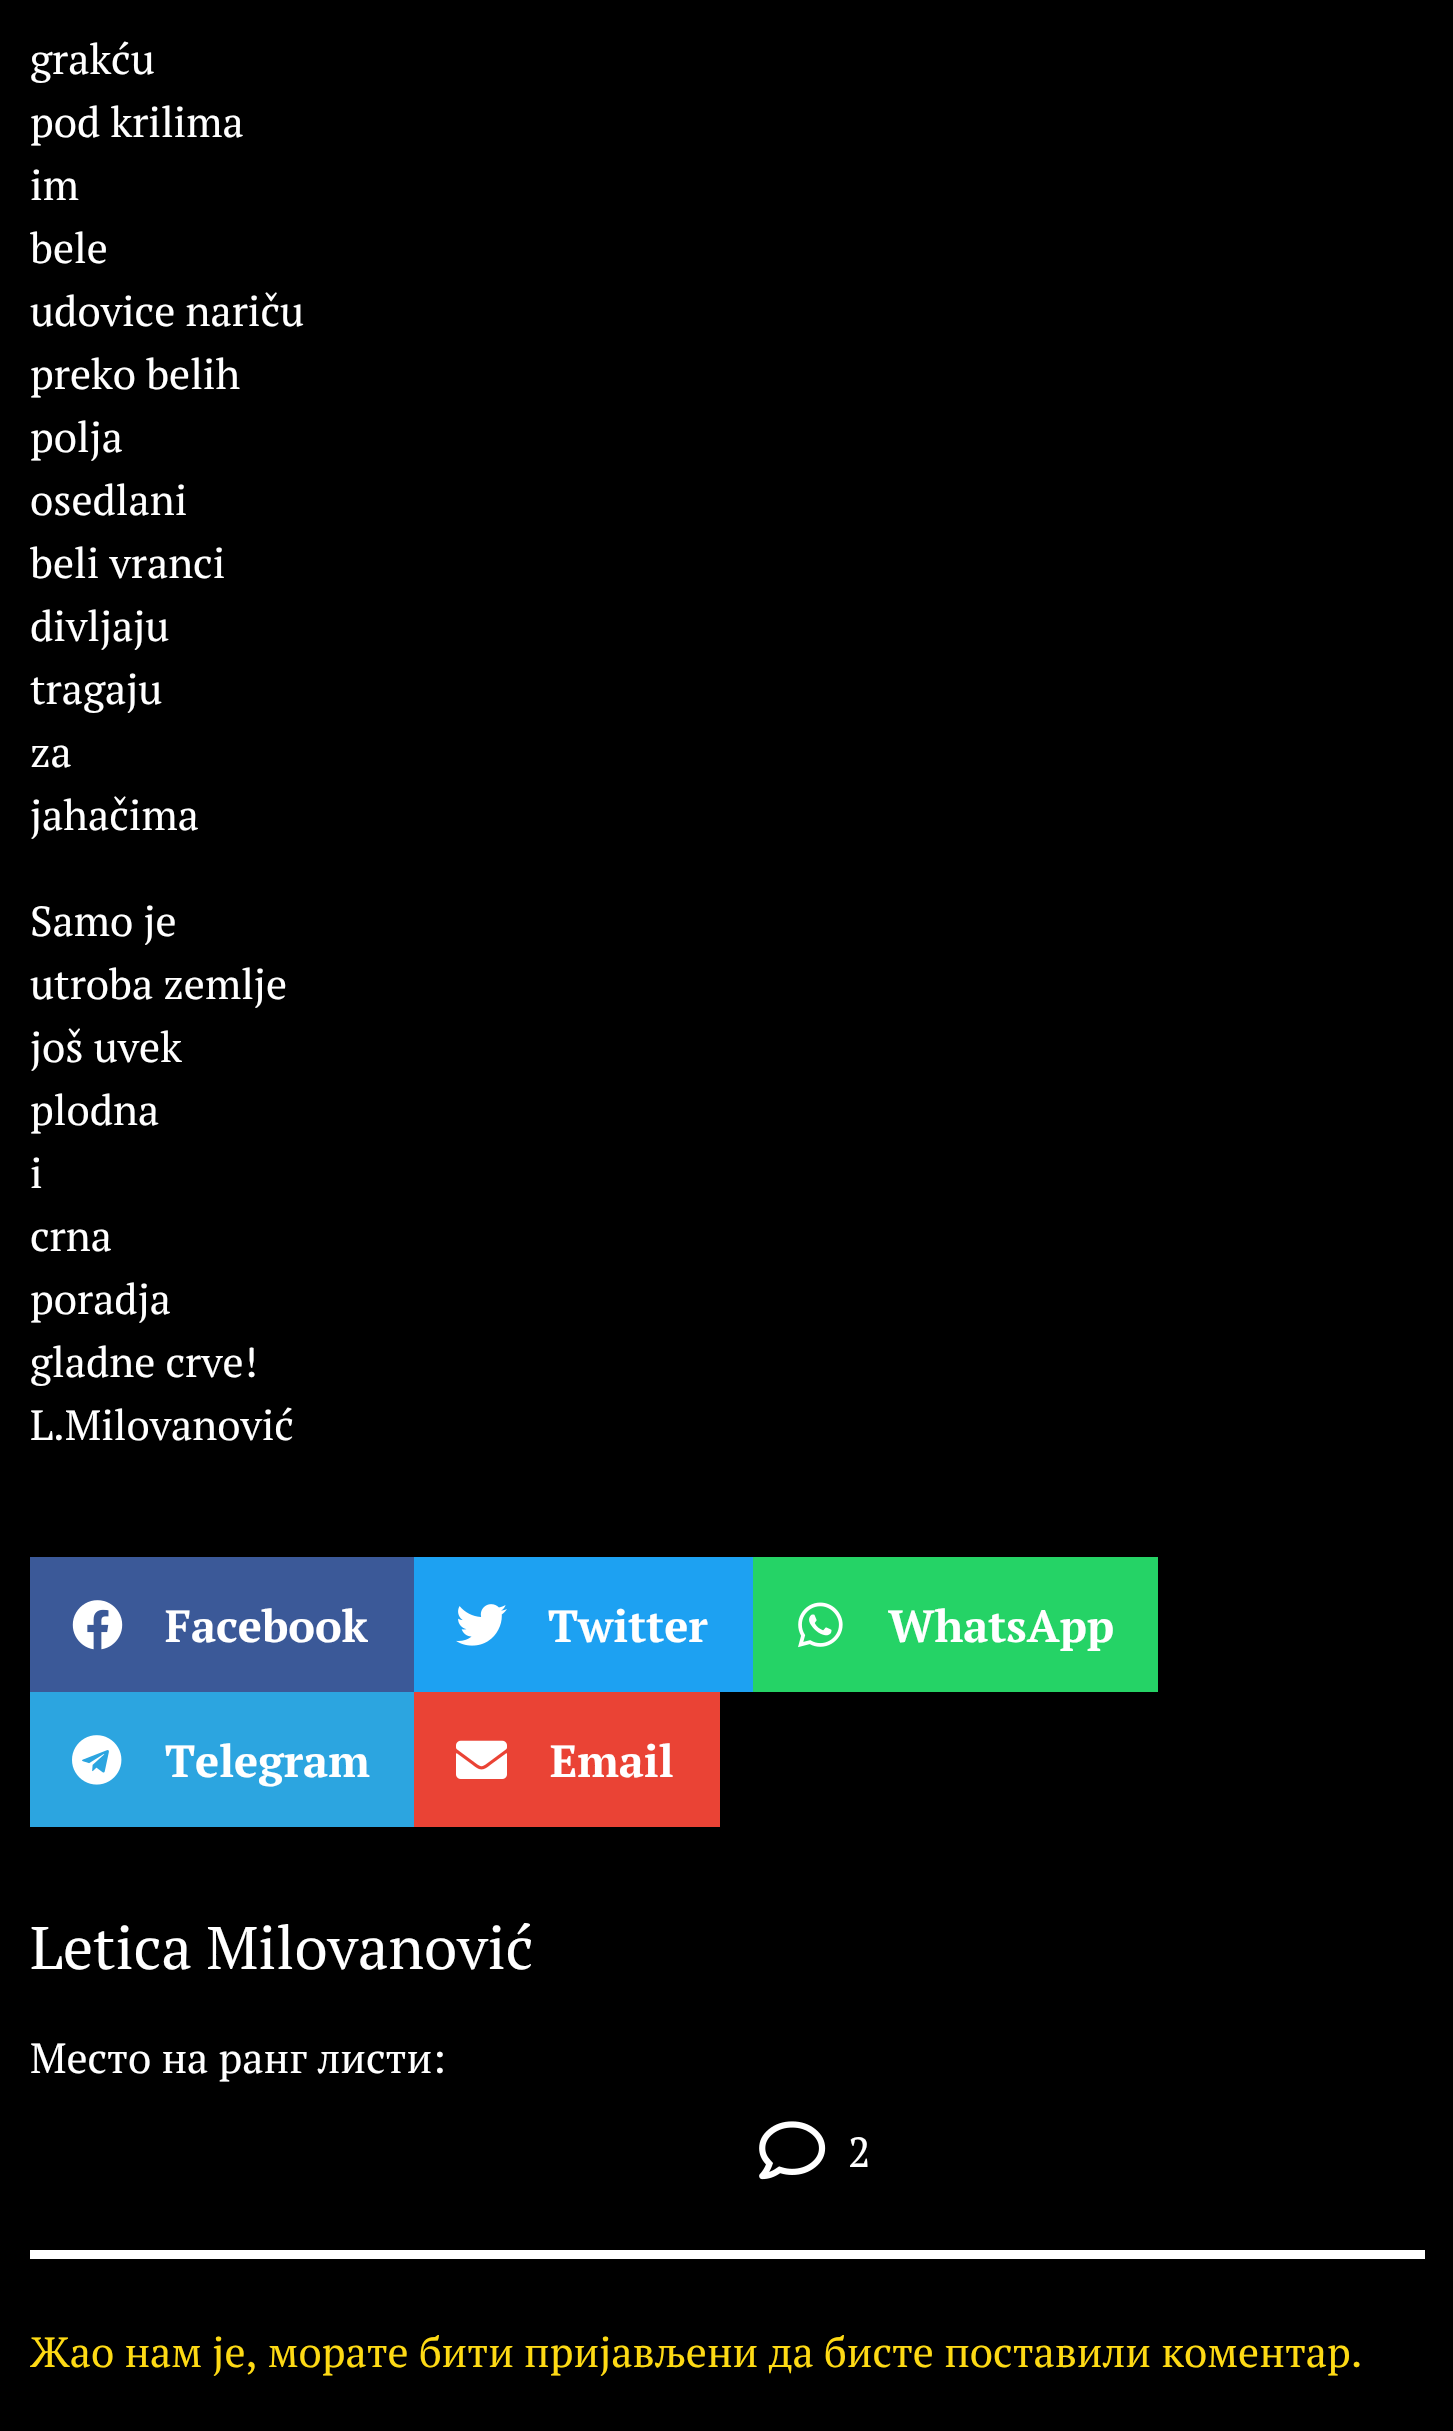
void draw(SkCanvas* canvas) {
	SkPaint fill;
	fill.setAntiAlias(true);
	auto makeFont = [&](const char* family, int weight, float size, bool italic = false) {
		SkFontStyle style(weight, SkFontStyle::kNormal_Width,
			italic ? SkFontStyle::kItalic_Slant : SkFontStyle::kUpright_Slant);
		SkFont result(fontMgr->matchFamilyStyle(family, style), size);
		result.setSubpixel(true);
		return result;
	};
	auto text = [&](const char* s, float x, float y, const SkFont& font) {
		canvas->drawString(s, x, y, font, fill);
	};
	auto box = [&](float l, float t, float r, float b) {
		canvas->drawRect(SkRect::MakeLTRB(l, t, r, b), fill);
	};
	auto picture = [&](const char* path, float l, float t, float r, float b) {
		auto image = SkImages::DeferredFromEncodedData(SkData::MakeFromFileName(path));
		canvas->drawImageRect(image, SkRect::MakeLTRB(l, t, r, b), SkSamplingOptions());
	};
	canvas->clear(0xFF000000);
	fill.setColor(0xFF3B5998);
	box(30, 1557, 414, 1692);
	picture("image0.png", 72, 1600, 123, 1650);
	fill.setColor(0xFF1DA1F2);
	box(414, 1557, 753, 1692);
	picture("image1.png", 456, 1604, 507, 1646);
	fill.setColor(0xFF25D366);
	box(753, 1557, 1158, 1692);
	picture("image2.png", 798, 1602, 843, 1648);
	fill.setColor(0xFF2CA5E0);
	box(30, 1692, 414, 1827);
	picture("image3.png", 72, 1735, 122, 1785);
	fill.setColor(0xFFEA4335);
	box(414, 1692, 720, 1827);
	picture("image4.png", 456, 1740, 507, 1779);
	fill.setColor(0xFFFFFFFF);
	box(30, 2250, 1425, 2259);
	picture("image5.png", 759, 2121, 826, 2180);
	auto font1 = makeFont("PT Serif", 400, 42);
	text("grakću", 30, 74, font1);
	text("pod krilima", 30, 137, font1);
	text("im", 30, 200, font1);
	text("bele", 30, 263, font1);
	text("udovice nariču", 30, 326, font1);
	text("preko belih", 30, 389, font1);
	text("polja", 30, 452, font1);
	text("osedlani", 30, 515, font1);
	text("beli vranci", 30, 578, font1);
	text("divljaju", 30, 641, font1);
	text("tragaju", 30, 704, font1);
	text("za", 30, 767, font1);
	text("jahačima", 30, 830, font1);
	text("Samo je", 30, 936, font1);
	text("utroba zemlje", 30, 999, font1);
	text("još uvek", 30, 1062, font1);
	text("plodna", 30, 1125, font1);
	text("i", 30, 1188, font1);
	text("crna", 30, 1251, font1);
	text("poradja", 30, 1314, font1);
	text("gladne crve!", 30, 1377, font1);
	text("L.Milovanović", 30, 1440, font1);
	auto font2 = makeFont("PT Serif", 700, 45);
	text("Facebook", 165, 1642, font2);
	text("Twitter", 548, 1642, font2);
	text("WhatsApp", 888, 1642, font2);
	text("Telegram", 165, 1777, font2);
	text("Email", 550, 1777, font2);
	auto font3 = makeFont("PT Serif", 400, 60);
	text("Letica Milovanović", 30, 1969, font3);
	text("Место на ранг листи:", 30, 2073, font1);
	text("2", 848, 2167, font1);
	fill.setColor(0xFFFEDA14);
	text("Жао нам је, морате бити пријављени да бисте поставили коментар.", 30, 2367, font1);
}
